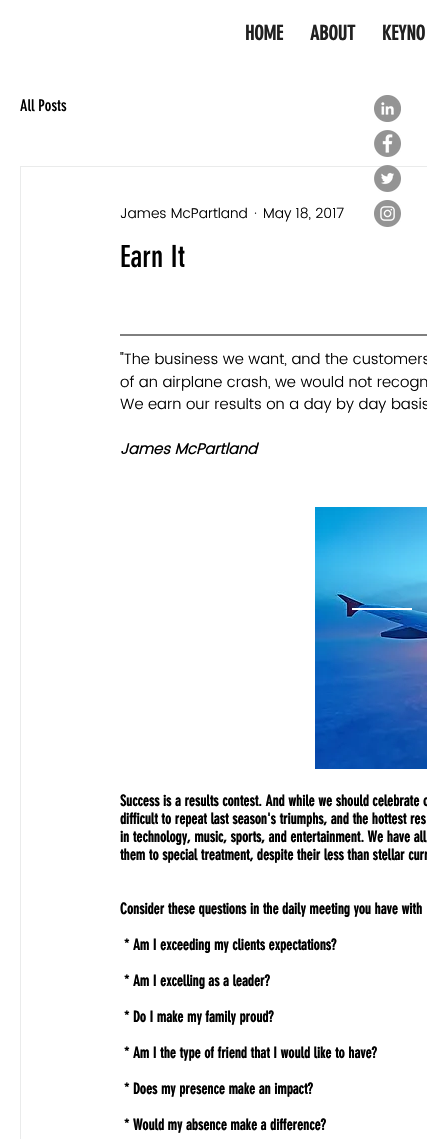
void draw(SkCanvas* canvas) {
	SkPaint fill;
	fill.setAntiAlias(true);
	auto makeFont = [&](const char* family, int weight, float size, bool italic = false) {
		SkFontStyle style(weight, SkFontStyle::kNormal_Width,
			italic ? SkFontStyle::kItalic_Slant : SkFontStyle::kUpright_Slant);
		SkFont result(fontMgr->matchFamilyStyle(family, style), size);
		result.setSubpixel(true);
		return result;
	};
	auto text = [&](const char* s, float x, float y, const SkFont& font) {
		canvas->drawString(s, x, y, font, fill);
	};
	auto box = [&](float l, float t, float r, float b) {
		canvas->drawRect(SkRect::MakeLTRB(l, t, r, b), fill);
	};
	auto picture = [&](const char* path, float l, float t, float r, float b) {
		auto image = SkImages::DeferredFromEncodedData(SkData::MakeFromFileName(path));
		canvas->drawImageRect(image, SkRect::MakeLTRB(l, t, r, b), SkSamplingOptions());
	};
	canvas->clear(0xFFFFFFFF);
	picture("image0.png", 374, 95, 401, 122);
	picture("image1.png", 374, 130, 401, 157);
	fill.setStyle(SkPaint::kStroke_Style);
	fill.setStrokeWidth(1);
	fill.setColor(0xFFEAEBEB);
	canvas->drawRect(SkRect::MakeLTRB(20.5f, 166.5f, 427.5f, 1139.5f), fill);
	picture("image2.png", 374, 165, 401, 192);
	picture("image3.png", 374, 200, 401, 227);
	fill.setColor(0xFF000000);
	canvas->drawPath(SkPathBuilder().moveTo(120, 335).lineTo(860, 335).detach(), fill);
	picture("image4.png", 315, 507, 427, 769);
	fill.setStyle(SkPaint::kFill_Style);
	fill.setColor(0xFFFFFFFF);
	box(352, 608, 412, 610);
	auto font1 = makeFont("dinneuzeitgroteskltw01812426", 700, 20);
	fill.setColor(0xFF212121);
	text("HOME", 245, 40, font1);
	text("ABOUT", 310, 40, font1);
	text("KEYNO", 382, 40, font1);
	auto font2 = makeFont("dinneuzeitgroteskltw01812426", 400, 16);
	fill.setColor(0xFF000000);
	text("All Posts", 20, 111, font2);
	auto font3 = makeFont("Poppins", 300, 14);
	text("James McPartland", 120, 218, font3);
	text("·", 254, 218, font3);
	text("May 18, 2017", 263, 218, font3);
	auto font4 = makeFont("dinneuzeitgroteskltw01812426", 400, 30);
	text("Earn It", 120, 267, font4);
	auto font5 = makeFont("Poppins", 300, 15);
	text("\"The business we want, and the customers", 120, 364, font5);
	text("of an airplane crash, we would not recogn", 120, 387, font5);
	text("We earn our results on a day by day basis", 120, 409, font5);
	auto font6 = makeFont("Poppins", 700, 15, true);
	text("James McPartland", 120, 454, font6);
	auto font7 = makeFont("dinneuzeitgroteskltw01812426", 700, 15);
	text("Success is a results contest. And while we should celebrate o", 120, 806, font7);
	text("difficult to repeat last season's triumphs, and the hottest res", 120, 824, font7);
	text("in technology, music, sports, and entertainment. We have all", 120, 842, font7);
	text("them to special treatment, despite their less than stellar curr", 120, 860, font7);
	text("Consider these questions in the daily meeting you have with", 120, 914, font7);
	text("* Am I exceeding my clients expectations?", 124, 950, font7);
	text("* Am I excelling as a leader?", 124, 986, font7);
	text("* Do I make my family proud?", 124, 1022, font7);
	text("* Am I the type of friend that I would like to have?", 124, 1058, font7);
	text("* Does my presence make an impact?", 124, 1094, font7);
	text("* Would my absence make a difference?", 124, 1130, font7);
}
